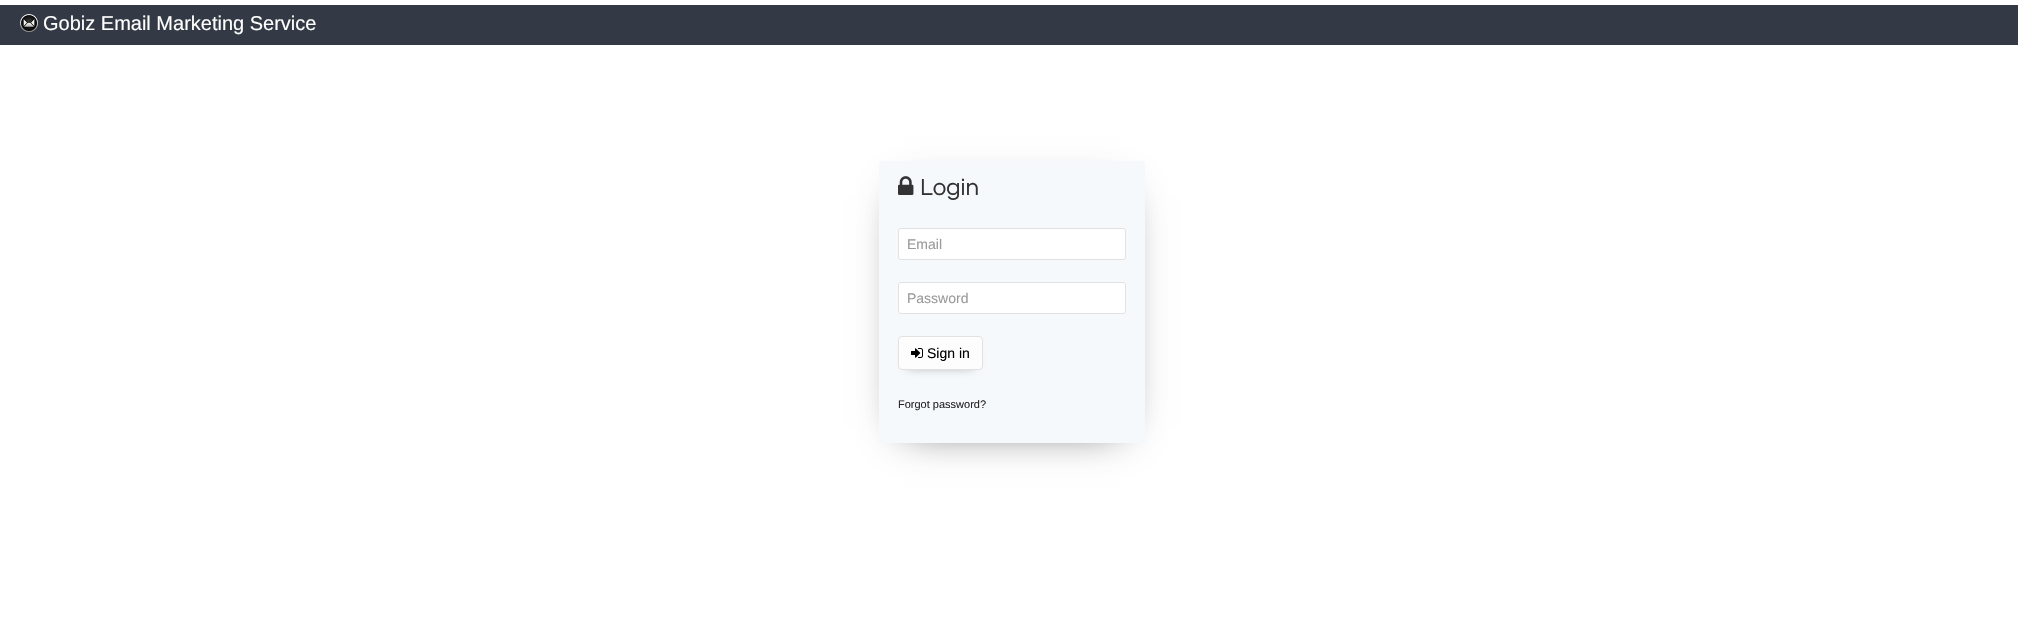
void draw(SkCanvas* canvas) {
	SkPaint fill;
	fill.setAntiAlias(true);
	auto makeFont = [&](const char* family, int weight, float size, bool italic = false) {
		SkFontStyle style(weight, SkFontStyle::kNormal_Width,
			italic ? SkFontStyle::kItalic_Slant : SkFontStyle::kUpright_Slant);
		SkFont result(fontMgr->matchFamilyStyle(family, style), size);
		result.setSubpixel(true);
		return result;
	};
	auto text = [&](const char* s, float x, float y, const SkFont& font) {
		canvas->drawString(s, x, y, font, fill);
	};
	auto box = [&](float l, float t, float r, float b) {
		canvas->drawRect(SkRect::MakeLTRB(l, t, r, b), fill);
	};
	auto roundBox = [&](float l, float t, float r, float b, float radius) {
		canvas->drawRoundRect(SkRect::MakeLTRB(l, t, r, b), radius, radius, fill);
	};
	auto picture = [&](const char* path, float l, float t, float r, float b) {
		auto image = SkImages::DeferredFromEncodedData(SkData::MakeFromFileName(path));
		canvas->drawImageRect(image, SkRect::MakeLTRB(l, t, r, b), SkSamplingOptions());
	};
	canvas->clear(0xFFFFFFFF);
	fill.setColor(0xFF333A45);
	box(0, 5, 2018, 45);
	picture("image0.png", 20, 14, 38, 32);
	fill.setColor(0xBF000000);
	fill.setMaskFilter(SkMaskFilter::MakeBlur(kNormal_SkBlurStyle, 20.5f));
	canvas->drawRect(SkRect::MakeLTRB(905, 197, 1119, 427), fill);
	fill.setMaskFilter(nullptr);
	fill.setColor(0xFFF6F9FC);
	roundBox(879, 161, 1145, 443, 4);
	picture("image1.png", 898, 176, 914, 195);
	fill.setColor(0xFFFFFFFF);
	canvas->drawRoundRect(SkRect::MakeLTRB(898.5f, 228.5f, 1125.5f, 259.5f), 2.5f, 2.5f, fill);
	fill.setStyle(SkPaint::kStroke_Style);
	fill.setStrokeWidth(1);
	fill.setColor(0xFFE2E2E2);
	canvas->drawRoundRect(SkRect::MakeLTRB(898.5f, 228.5f, 1125.5f, 259.5f), 2.5f, 2.5f, fill);
	fill.setStyle(SkPaint::kFill_Style);
	fill.setColor(0xFFFFFFFF);
	canvas->drawRoundRect(SkRect::MakeLTRB(898.5f, 282.5f, 1125.5f, 313.5f), 2.5f, 2.5f, fill);
	fill.setStyle(SkPaint::kStroke_Style);
	fill.setColor(0xFFE2E2E2);
	canvas->drawRoundRect(SkRect::MakeLTRB(898.5f, 282.5f, 1125.5f, 313.5f), 2.5f, 2.5f, fill);
	fill.setStyle(SkPaint::kFill_Style);
	fill.setColor(0x80000000);
	fill.setMaskFilter(SkMaskFilter::MakeBlur(kNormal_SkBlurStyle, 5.5f));
	canvas->drawRect(SkRect::MakeLTRB(908, 352, 973, 366), fill);
	fill.setMaskFilter(nullptr);
	fill.setColor(0xFFFDFDFD);
	canvas->drawRoundRect(SkRect::MakeLTRB(898.5f, 336.5f, 982.5f, 369.5f), 3.5f, 3.5f, fill);
	fill.setStyle(SkPaint::kStroke_Style);
	fill.setColor(0xFFE2E2E2);
	canvas->drawRoundRect(SkRect::MakeLTRB(898.5f, 336.5f, 982.5f, 369.5f), 3.5f, 3.5f, fill);
	picture("image2.png", 911, 348, 923, 358);
	auto font1 = makeFont("Liberation Sans", 400, 20);
	fill.setStyle(SkPaint::kFill_Style);
	fill.setColor(0xFFFFFFFF);
	text("Gobiz Email Marketing Service", 43, 30, font1);
	auto font2 = makeFont("Questrial", 400, 24);
	fill.setColor(0xFF333333);
	text("Login", 920, 195, font2);
	auto font3 = makeFont("Liberation Sans", 400, 14);
	fill.setColor(0xFF999999);
	text("Email", 907, 249, font3);
	text("Password", 907, 303, font3);
	fill.setColor(0xFF000000);
	text("Sign in", 927, 358, font3);
	auto font4 = makeFont("Liberation Sans", 400, 11);
	fill.setColor(0xFF262626);
	text("Forgot password?", 898, 408, font4);
}
